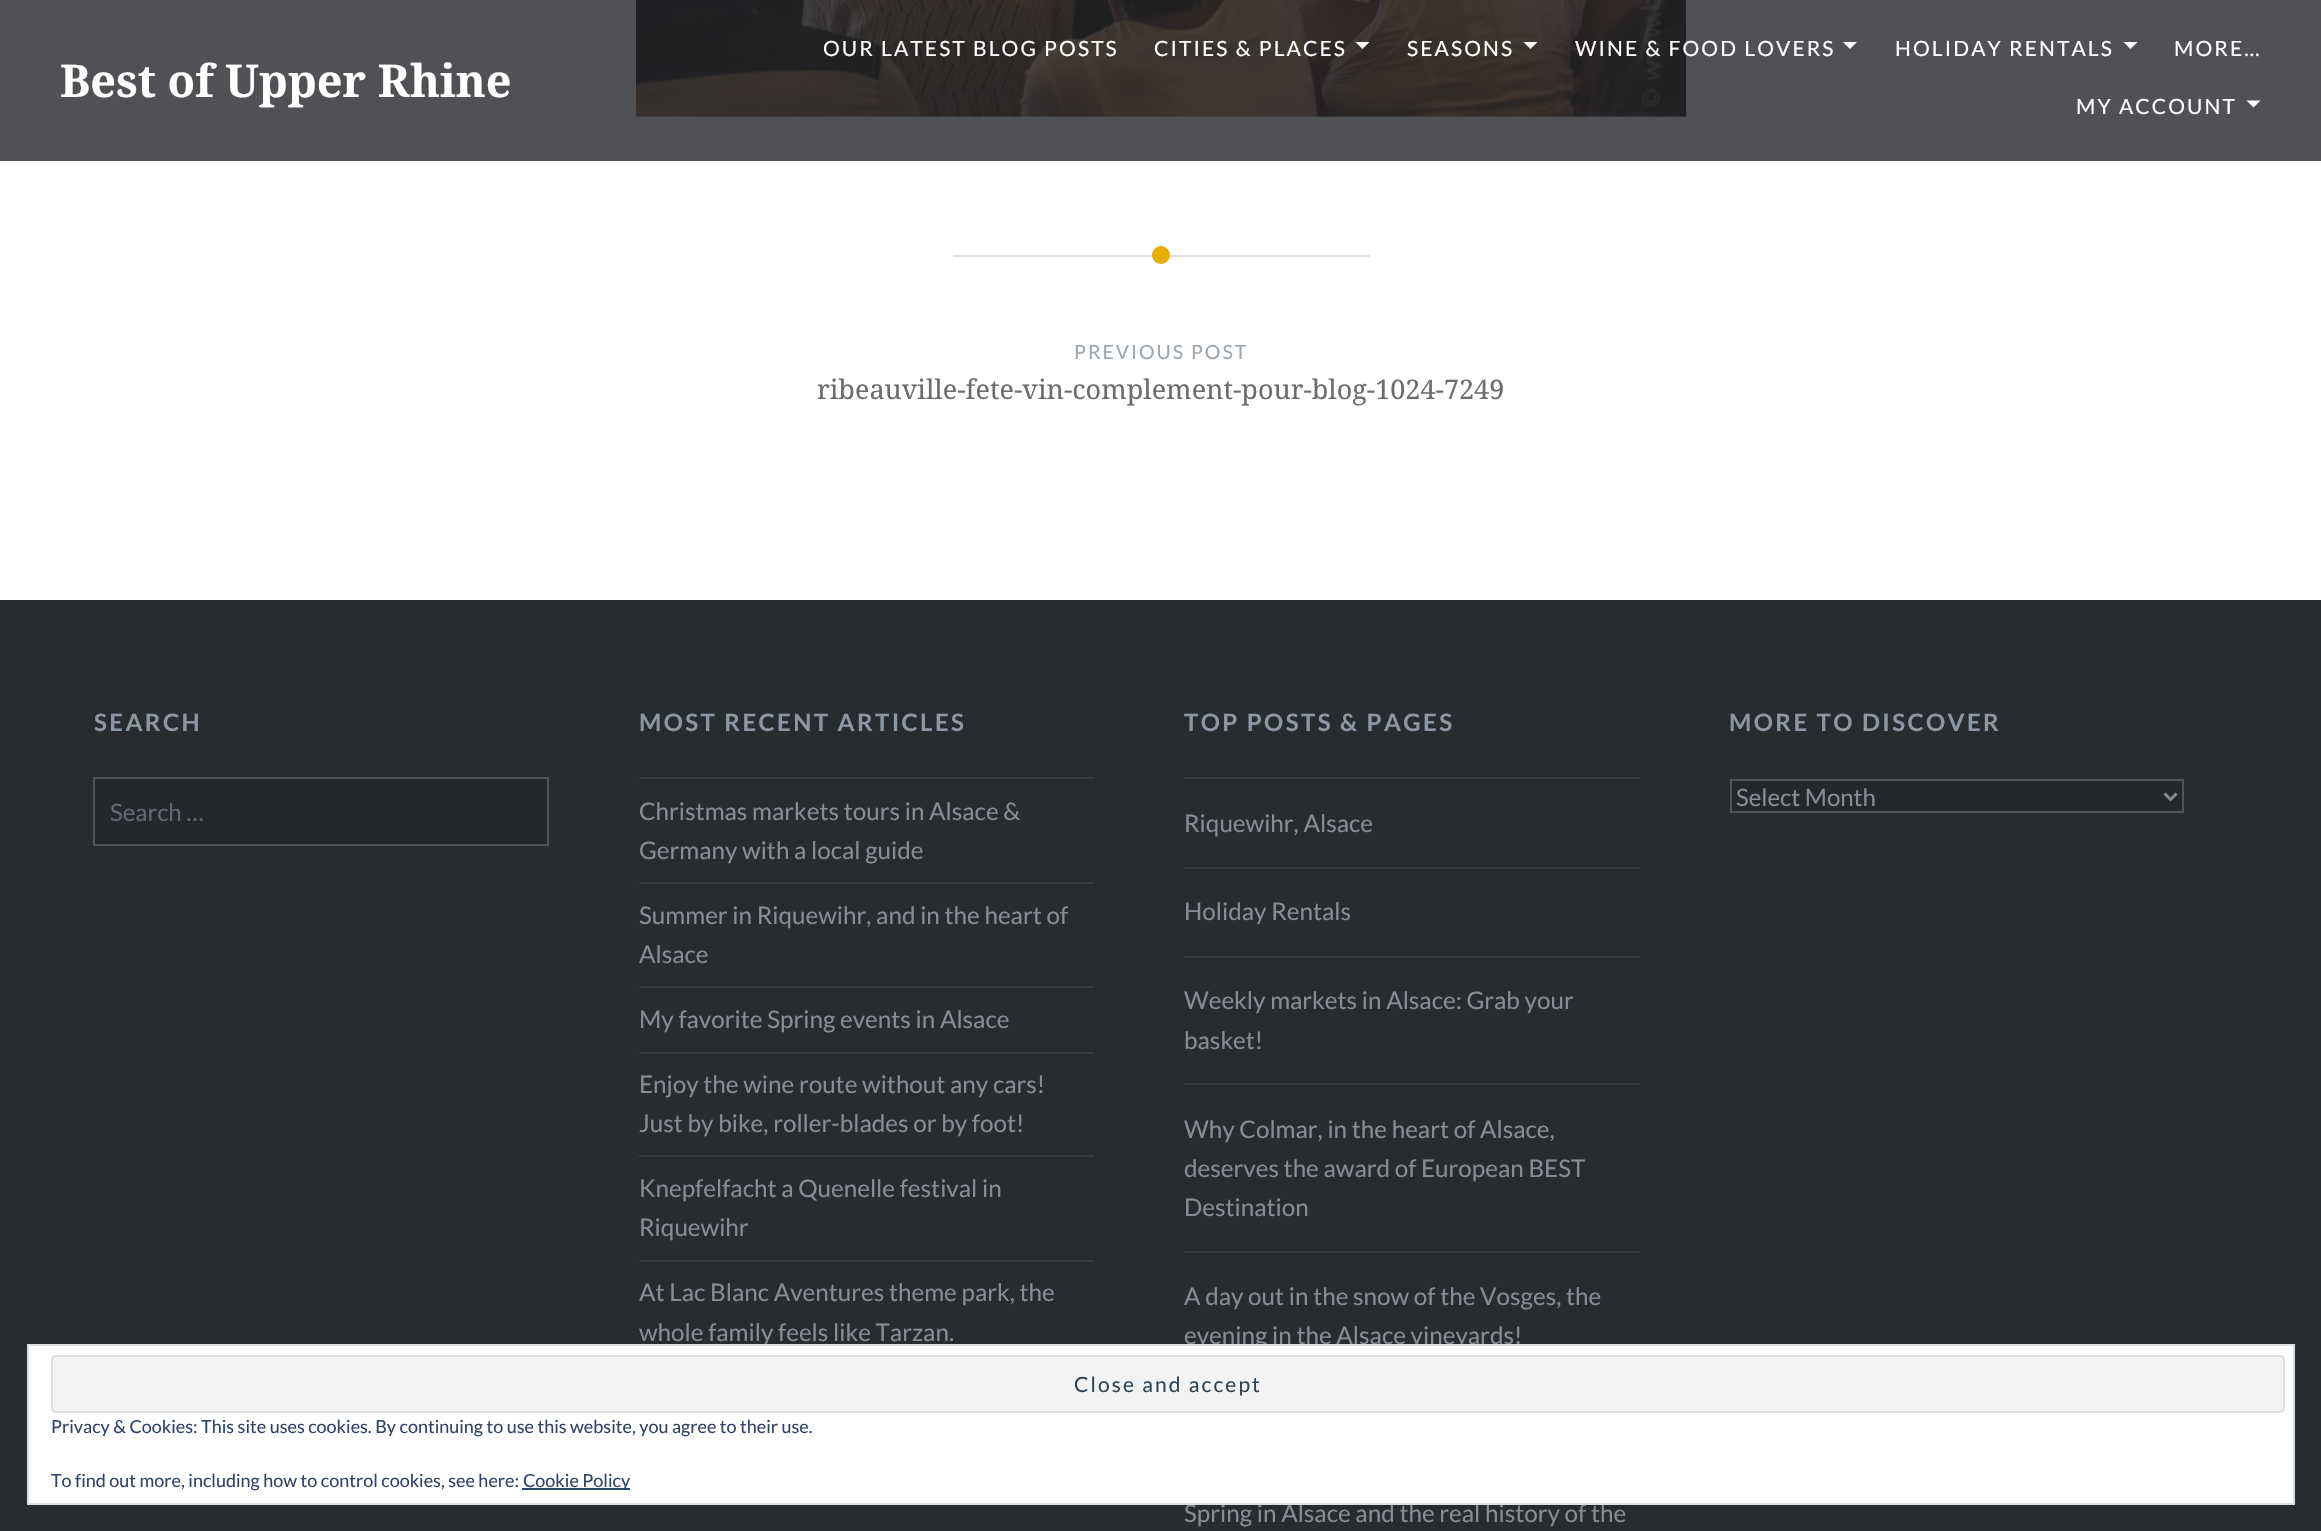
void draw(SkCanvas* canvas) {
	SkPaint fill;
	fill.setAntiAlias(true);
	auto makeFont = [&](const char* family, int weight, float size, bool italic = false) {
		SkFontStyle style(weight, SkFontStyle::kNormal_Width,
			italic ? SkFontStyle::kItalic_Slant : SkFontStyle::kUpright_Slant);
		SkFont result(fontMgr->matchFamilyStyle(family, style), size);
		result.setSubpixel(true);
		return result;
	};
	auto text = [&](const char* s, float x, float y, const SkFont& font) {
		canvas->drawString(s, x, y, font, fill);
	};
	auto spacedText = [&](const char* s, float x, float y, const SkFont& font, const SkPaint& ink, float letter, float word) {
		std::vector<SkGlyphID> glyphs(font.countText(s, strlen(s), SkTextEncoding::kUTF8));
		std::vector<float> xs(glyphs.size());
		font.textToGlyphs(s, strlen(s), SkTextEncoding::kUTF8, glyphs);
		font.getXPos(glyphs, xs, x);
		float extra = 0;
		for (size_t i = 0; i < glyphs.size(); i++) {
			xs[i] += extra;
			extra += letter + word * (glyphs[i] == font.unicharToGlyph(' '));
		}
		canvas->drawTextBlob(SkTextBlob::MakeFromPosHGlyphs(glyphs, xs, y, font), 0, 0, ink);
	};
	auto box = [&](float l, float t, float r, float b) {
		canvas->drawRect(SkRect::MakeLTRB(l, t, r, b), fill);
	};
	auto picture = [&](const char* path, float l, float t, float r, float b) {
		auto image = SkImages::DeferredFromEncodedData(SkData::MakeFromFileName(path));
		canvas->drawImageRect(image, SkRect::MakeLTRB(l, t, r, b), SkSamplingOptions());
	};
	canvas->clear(0xFFFFFFFF);
	fill.setColor(0xFF505154);
	box(0, 0, 2321, 161);
	picture("image0.png", 636, 0, 1686, 117);
	fill.setColor(0xFFFFFFFF);
	canvas->drawPath(SkPathBuilder().moveTo(1355.5f, 42).lineTo(1369.5f, 42).lineTo(1362.5f, 49).close().detach(), fill);
	canvas->drawPath(SkPathBuilder().moveTo(1523.5f, 42).lineTo(1537.5f, 42).lineTo(1530.5f, 49).close().detach(), fill);
	canvas->drawPath(SkPathBuilder().moveTo(1843, 42).lineTo(1857, 42).lineTo(1850, 49).close().detach(), fill);
	canvas->drawPath(SkPathBuilder().moveTo(2123.5f, 42).lineTo(2137.5f, 42).lineTo(2130.5f, 49).close().detach(), fill);
	canvas->drawPath(SkPathBuilder().moveTo(2246.5f, 100.5f).lineTo(2260.5f, 100.5f).lineTo(2253.5f, 107.5f).close().detach(), fill);
	fill.setColor(0xFFE0E0E0);
	box(953, 255, 1370, 257);
	fill.setColor(0xFFE7AE01);
	canvas->drawCircle(1161, 255, 9, fill);
	fill.setColor(0xFF292C2F);
	box(0, 600, 2321, 1531);
	fill.setColor(0xFF25282A);
	canvas->drawRect(SkRect::MakeLTRB(94, 778, 548, 845), fill);
	fill.setStyle(SkPaint::kStroke_Style);
	fill.setStrokeWidth(2);
	fill.setColor(0xFF4D545B);
	canvas->drawRect(SkRect::MakeLTRB(94, 778, 548, 845), fill);
	fill.setStyle(SkPaint::kFill_Style);
	fill.setColor(0xFF363B40);
	box(639, 777, 1094, 779);
	box(639, 882, 1094, 884);
	box(639, 986, 1094, 988);
	box(639, 1052, 1094, 1054);
	box(639, 1155, 1094, 1157);
	box(639, 1260, 1094, 1262);
	box(1184, 777, 1640, 779);
	box(1184, 867, 1640, 869);
	box(1184, 956, 1640, 958);
	box(1184, 1083, 1640, 1085);
	box(1184, 1251, 1640, 1253);
	fill.setColor(0xFF25282A);
	canvas->drawRect(SkRect::MakeLTRB(1731, 780, 2183, 812), fill);
	fill.setStyle(SkPaint::kStroke_Style);
	fill.setColor(0xFF4D545B);
	canvas->drawRect(SkRect::MakeLTRB(1731, 780, 2183, 812), fill);
	fill.setStrokeWidth(3);
	fill.setColor(0xFF858D95);
	canvas->drawPath(SkPathBuilder().moveTo(2164.5f, 793.5f).lineTo(2170.5f, 799.5f).lineTo(2176.5f, 793.5f).detach(), fill);
	auto font1 = makeFont("Noto Serif", 700, 45);
	fill.setStyle(SkPaint::kFill_Style);
	fill.setColor(0xFFFFFFFF);
	text("Best of Upper Rhine", 60, 97, font1);
	auto font2 = makeFont("Lato", 400, 21);
	spacedText("OUR LATEST BLOG POSTS", 823, 56, font2, fill, 2.1f, 0);
	spacedText("CITIES & PLACES", 1154, 56, font2, fill, 2.1f, 0);
	spacedText("SEASONS", 1407, 56, font2, fill, 2.1f, 0);
	spacedText("WINE & FOOD LOVERS", 1575, 56, font2, fill, 2.1f, 0);
	spacedText("HOLIDAY RENTALS", 1895, 56, font2, fill, 2.1f, 0);
	spacedText("MORE…", 2174, 56, font2, fill, 2.1f, 0);
	spacedText("MY ACCOUNT", 2076, 114, font2, fill, 2.1f, 0);
	auto font3 = makeFont("Lato", 400, 19.5f);
	fill.setColor(0xFF9DA5AD);
	spacedText("PREVIOUS POST", 1074, 359, font3, fill, 2, 0);
	auto font4 = makeFont("Noto Serif", 400, 27);
	fill.setColor(0xFF6A6C6E);
	text("ribeauville-fete-vin-complement-pour-blog-1024-7249", 817, 399, font4);
	auto font5 = makeFont("Lato", 700, 24);
	fill.setColor(0xFF8C97A2);
	spacedText("SEARCH", 94, 731, font5, fill, 2.4f, 0);
	auto font6 = makeFont("Lato", 400, 24);
	fill.setColor(0xFF616A74);
	text("Search …", 110, 821, font6);
	fill.setColor(0xFF8C97A2);
	spacedText("MOST RECENT ARTICLES", 639, 731, font5, fill, 2.4f, 0);
	auto font7 = makeFont("Lato", 400, 24.25f);
	fill.setColor(0xFF858D95);
	text("Christmas markets tours in Alsace &", 639, 820, font7);
	text("Germany with a local guide", 639, 859, font7);
	text("Summer in Riquewihr, and in the heart of", 639, 924, font7);
	text("Alsace", 639, 963, font7);
	text("My favorite Spring events in Alsace", 639, 1028, font7);
	text("Enjoy the wine route without any cars!", 639, 1093, font7);
	text("Just by bike, roller-blades or by foot!", 639, 1132, font7);
	text("Knepfelfacht a Quenelle festival in", 639, 1197, font7);
	text("Riquewihr", 639, 1236, font7);
	text("At Lac Blanc Aventures theme park, the", 639, 1301, font7);
	text("whole family feels like Tarzan.", 639, 1341, font7);
	fill.setColor(0xFF8C97A2);
	spacedText("TOP POSTS & PAGES", 1184, 731, font5, fill, 2.4f, 0);
	fill.setColor(0xFF858D95);
	text("Riquewihr, Alsace", 1184, 832, font7);
	text("Holiday Rentals", 1184, 920, font7);
	text("Weekly markets in Alsace: Grab your", 1184, 1009, font7);
	text("basket!", 1184, 1049, font7);
	text("Why Colmar, in the heart of Alsace,", 1184, 1138, font7);
	text("deserves the award of European BEST", 1184, 1177, font7);
	text("Destination", 1184, 1216, font7);
	text("A day out in the snow of the Vosges, the", 1184, 1305, font7);
	text("evening in the Alsace vineyards!", 1184, 1344, font7);
	text("Spring in Alsace and the real history of the", 1184, 1522, font7);
	fill.setColor(0xFF8C97A2);
	spacedText("MORE TO DISCOVER", 1729, 731, font5, fill, 2.4f, 0);
	fill.setColor(0xFF858D95);
	text("Select Month", 1736, 806, font6);
	fill.setColor(0xFFFFFFFF);
	canvas->drawRect(SkRect::MakeLTRB(28, 1345, 2294, 1504), fill);
	fill.setStyle(SkPaint::kStroke_Style);
	fill.setStrokeWidth(2);
	fill.setColor(0xFFDEDEDE);
	canvas->drawRect(SkRect::MakeLTRB(28, 1345, 2294, 1504), fill);
	fill.setStyle(SkPaint::kFill_Style);
	fill.setColor(0xFFF3F3F3);
	canvas->drawRoundRect(SkRect::MakeLTRB(52, 1356, 2284, 1412), 4, 4, fill);
	fill.setStyle(SkPaint::kStroke_Style);
	fill.setColor(0xFFDEDEDE);
	canvas->drawRoundRect(SkRect::MakeLTRB(52, 1356, 2284, 1412), 4, 4, fill);
	fill.setStyle(SkPaint::kFill_Style);
	fill.setColor(0xFF2E4453);
	spacedText("Close and accept", 1074, 1392, font2, fill, 2.1f, 0);
	auto font8 = makeFont("Lato", 400, 18);
	fill.setColor(0xFF2E4467);
	text("Privacy & Cookies: This site uses cookies. By continuing to use this website, you agree to their use.", 51, 1433, font8);
	text("To find out more, including how to control cookies, see here:", 51, 1487, font8);
	box(522, 1488, 630, 1490);
	text("Cookie Policy", 523, 1487, font8);
}
